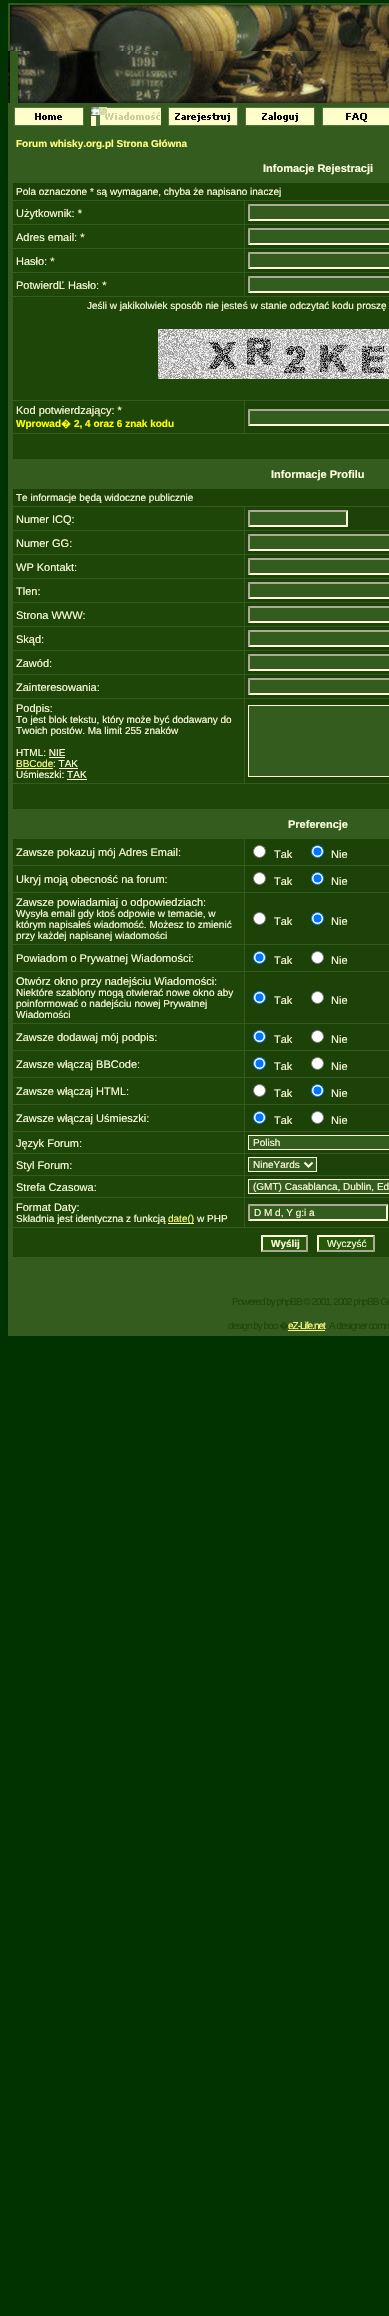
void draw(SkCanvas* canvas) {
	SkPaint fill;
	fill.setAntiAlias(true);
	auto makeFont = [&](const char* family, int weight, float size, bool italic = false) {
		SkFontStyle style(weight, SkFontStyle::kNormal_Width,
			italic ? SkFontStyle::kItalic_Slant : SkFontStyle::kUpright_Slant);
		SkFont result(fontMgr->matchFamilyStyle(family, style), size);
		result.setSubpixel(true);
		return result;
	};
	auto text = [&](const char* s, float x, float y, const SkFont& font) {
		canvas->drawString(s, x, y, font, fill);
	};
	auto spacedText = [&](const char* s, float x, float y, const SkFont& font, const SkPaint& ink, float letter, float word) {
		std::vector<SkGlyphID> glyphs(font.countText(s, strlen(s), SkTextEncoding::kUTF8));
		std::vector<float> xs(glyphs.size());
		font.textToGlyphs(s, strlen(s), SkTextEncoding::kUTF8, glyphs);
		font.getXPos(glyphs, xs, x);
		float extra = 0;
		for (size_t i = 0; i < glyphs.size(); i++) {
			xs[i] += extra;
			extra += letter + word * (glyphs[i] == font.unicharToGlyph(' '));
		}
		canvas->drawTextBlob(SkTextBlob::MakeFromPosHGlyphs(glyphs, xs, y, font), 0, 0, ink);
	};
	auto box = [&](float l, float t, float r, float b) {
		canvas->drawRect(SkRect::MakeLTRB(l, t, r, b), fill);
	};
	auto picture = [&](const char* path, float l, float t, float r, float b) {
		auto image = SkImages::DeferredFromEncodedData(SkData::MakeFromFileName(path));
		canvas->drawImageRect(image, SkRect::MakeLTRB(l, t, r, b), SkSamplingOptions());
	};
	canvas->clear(0xFF013300);
	picture("image0.png", 8, 3, 389, 103);
	fill.setColor(0xFF345C1E);
	box(8, 103, 389, 1336);
	picture("image1.png", 14, 107, 84, 126);
	picture("image2.png", 91, 107, 161, 126);
	picture("image3.png", 168, 107, 238, 126);
	picture("image4.png", 245, 107, 315, 126);
	picture("image5.png", 322, 107, 389, 126);
	fill.setColor(0xFF1C4208);
	box(13, 183, 389, 200);
	fill.setColor(0xFF1E4608);
	box(13, 201, 244, 224);
	fill.setColor(0xFF1C4208);
	box(245, 201, 389, 224);
	fill.setColor(0xFF345C1E);
	box(248, 204, 389, 221);
	fill.setColor(0xFFAAAA95);
	canvas->drawPath(SkPathBuilder().moveTo(248, 204).lineTo(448, 204).lineTo(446, 206).lineTo(250, 206).close().detach(), fill);
	fill.setColor(0xFFFFFFDF);
	canvas->drawPath(SkPathBuilder().moveTo(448, 221).lineTo(248, 221).lineTo(250, 219).lineTo(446, 219).close().detach(), fill);
	fill.setColor(0xFFAAAA95);
	canvas->drawPath(SkPathBuilder().moveTo(248, 221).lineTo(248, 204).lineTo(250, 206).lineTo(250, 219).close().detach(), fill);
	fill.setColor(0xFF1E4608);
	box(13, 225, 244, 248);
	fill.setColor(0xFF1C4208);
	box(245, 225, 389, 248);
	fill.setColor(0xFF345C1E);
	box(248, 228, 389, 245);
	fill.setColor(0xFFAAAA95);
	canvas->drawPath(SkPathBuilder().moveTo(248, 228).lineTo(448, 228).lineTo(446, 230).lineTo(250, 230).close().detach(), fill);
	fill.setColor(0xFFFFFFDF);
	canvas->drawPath(SkPathBuilder().moveTo(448, 245).lineTo(248, 245).lineTo(250, 243).lineTo(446, 243).close().detach(), fill);
	fill.setColor(0xFFAAAA95);
	canvas->drawPath(SkPathBuilder().moveTo(248, 245).lineTo(248, 228).lineTo(250, 230).lineTo(250, 243).close().detach(), fill);
	fill.setColor(0xFF1E4608);
	box(13, 249, 244, 272);
	fill.setColor(0xFF1C4208);
	box(245, 249, 389, 272);
	fill.setColor(0xFF345C1E);
	box(248, 252, 389, 269);
	fill.setColor(0xFFAAAA95);
	canvas->drawPath(SkPathBuilder().moveTo(248, 252).lineTo(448, 252).lineTo(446, 254).lineTo(250, 254).close().detach(), fill);
	fill.setColor(0xFFFFFFDF);
	canvas->drawPath(SkPathBuilder().moveTo(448, 269).lineTo(248, 269).lineTo(250, 267).lineTo(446, 267).close().detach(), fill);
	fill.setColor(0xFFAAAA95);
	canvas->drawPath(SkPathBuilder().moveTo(248, 269).lineTo(248, 252).lineTo(250, 254).lineTo(250, 267).close().detach(), fill);
	fill.setColor(0xFF1E4608);
	box(13, 273, 244, 296);
	fill.setColor(0xFF1C4208);
	box(245, 273, 389, 296);
	fill.setColor(0xFF345C1E);
	box(248, 276, 389, 293);
	fill.setColor(0xFFAAAA95);
	canvas->drawPath(SkPathBuilder().moveTo(248, 276).lineTo(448, 276).lineTo(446, 278).lineTo(250, 278).close().detach(), fill);
	fill.setColor(0xFFFFFFDF);
	canvas->drawPath(SkPathBuilder().moveTo(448, 293).lineTo(248, 293).lineTo(250, 291).lineTo(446, 291).close().detach(), fill);
	fill.setColor(0xFFAAAA95);
	canvas->drawPath(SkPathBuilder().moveTo(248, 293).lineTo(248, 276).lineTo(250, 278).lineTo(250, 291).close().detach(), fill);
	fill.setColor(0xFF1E4608);
	box(13, 297, 389, 400);
	picture("image6.png", 158, 329, 389, 379);
	box(13, 401, 244, 433);
	fill.setColor(0xFF1C4208);
	box(245, 401, 389, 433);
	fill.setColor(0xFF345C1E);
	box(248, 409, 389, 426);
	fill.setColor(0xFFAAAA95);
	canvas->drawPath(SkPathBuilder().moveTo(248, 409).lineTo(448, 409).lineTo(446, 411).lineTo(250, 411).close().detach(), fill);
	fill.setColor(0xFFFFFFDF);
	canvas->drawPath(SkPathBuilder().moveTo(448, 426).lineTo(248, 426).lineTo(250, 424).lineTo(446, 424).close().detach(), fill);
	fill.setColor(0xFFAAAA95);
	canvas->drawPath(SkPathBuilder().moveTo(248, 426).lineTo(248, 409).lineTo(250, 411).lineTo(250, 424).close().detach(), fill);
	fill.setColor(0xFF1E4608);
	box(13, 434, 389, 459);
	fill.setColor(0xFF1C4208);
	box(13, 489, 389, 506);
	fill.setColor(0xFF1E4608);
	box(13, 507, 244, 530);
	fill.setColor(0xFF1C4208);
	box(245, 507, 389, 530);
	fill.setColor(0xFF345C1E);
	box(248, 510, 348, 527);
	fill.setColor(0xFFAAAA95);
	canvas->drawPath(SkPathBuilder().moveTo(248, 510).lineTo(348, 510).lineTo(346, 512).lineTo(250, 512).close().detach(), fill);
	fill.setColor(0xFFFFFFDF);
	canvas->drawPath(SkPathBuilder().moveTo(348, 510).lineTo(348, 527).lineTo(346, 525).lineTo(346, 512).close().detach(), fill);
	canvas->drawPath(SkPathBuilder().moveTo(348, 527).lineTo(248, 527).lineTo(250, 525).lineTo(346, 525).close().detach(), fill);
	fill.setColor(0xFFAAAA95);
	canvas->drawPath(SkPathBuilder().moveTo(248, 527).lineTo(248, 510).lineTo(250, 512).lineTo(250, 525).close().detach(), fill);
	fill.setColor(0xFF1E4608);
	box(13, 531, 244, 554);
	fill.setColor(0xFF1C4208);
	box(245, 531, 389, 554);
	fill.setColor(0xFF345C1E);
	box(248, 534, 389, 551);
	fill.setColor(0xFFAAAA95);
	canvas->drawPath(SkPathBuilder().moveTo(248, 534).lineTo(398, 534).lineTo(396, 536).lineTo(250, 536).close().detach(), fill);
	fill.setColor(0xFFFFFFDF);
	canvas->drawPath(SkPathBuilder().moveTo(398, 551).lineTo(248, 551).lineTo(250, 549).lineTo(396, 549).close().detach(), fill);
	fill.setColor(0xFFAAAA95);
	canvas->drawPath(SkPathBuilder().moveTo(248, 551).lineTo(248, 534).lineTo(250, 536).lineTo(250, 549).close().detach(), fill);
	fill.setColor(0xFF1E4608);
	box(13, 555, 244, 578);
	fill.setColor(0xFF1C4208);
	box(245, 555, 389, 578);
	fill.setColor(0xFF345C1E);
	box(248, 558, 389, 575);
	fill.setColor(0xFFAAAA95);
	canvas->drawPath(SkPathBuilder().moveTo(248, 558).lineTo(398, 558).lineTo(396, 560).lineTo(250, 560).close().detach(), fill);
	fill.setColor(0xFFFFFFDF);
	canvas->drawPath(SkPathBuilder().moveTo(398, 575).lineTo(248, 575).lineTo(250, 573).lineTo(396, 573).close().detach(), fill);
	fill.setColor(0xFFAAAA95);
	canvas->drawPath(SkPathBuilder().moveTo(248, 575).lineTo(248, 558).lineTo(250, 560).lineTo(250, 573).close().detach(), fill);
	fill.setColor(0xFF1E4608);
	box(13, 579, 244, 602);
	fill.setColor(0xFF1C4208);
	box(245, 579, 389, 602);
	fill.setColor(0xFF345C1E);
	box(248, 582, 389, 599);
	fill.setColor(0xFFAAAA95);
	canvas->drawPath(SkPathBuilder().moveTo(248, 582).lineTo(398, 582).lineTo(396, 584).lineTo(250, 584).close().detach(), fill);
	fill.setColor(0xFFFFFFDF);
	canvas->drawPath(SkPathBuilder().moveTo(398, 599).lineTo(248, 599).lineTo(250, 597).lineTo(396, 597).close().detach(), fill);
	fill.setColor(0xFFAAAA95);
	canvas->drawPath(SkPathBuilder().moveTo(248, 599).lineTo(248, 582).lineTo(250, 584).lineTo(250, 597).close().detach(), fill);
	fill.setColor(0xFF1E4608);
	box(13, 603, 244, 626);
	fill.setColor(0xFF1C4208);
	box(245, 603, 389, 626);
	fill.setColor(0xFF345C1E);
	box(248, 606, 389, 623);
	fill.setColor(0xFFAAAA95);
	canvas->drawPath(SkPathBuilder().moveTo(248, 606).lineTo(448, 606).lineTo(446, 608).lineTo(250, 608).close().detach(), fill);
	fill.setColor(0xFFFFFFDF);
	canvas->drawPath(SkPathBuilder().moveTo(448, 623).lineTo(248, 623).lineTo(250, 621).lineTo(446, 621).close().detach(), fill);
	fill.setColor(0xFFAAAA95);
	canvas->drawPath(SkPathBuilder().moveTo(248, 623).lineTo(248, 606).lineTo(250, 608).lineTo(250, 621).close().detach(), fill);
	fill.setColor(0xFF1E4608);
	box(13, 627, 244, 650);
	fill.setColor(0xFF1C4208);
	box(245, 627, 389, 650);
	fill.setColor(0xFF345C1E);
	box(248, 630, 389, 647);
	fill.setColor(0xFFAAAA95);
	canvas->drawPath(SkPathBuilder().moveTo(248, 630).lineTo(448, 630).lineTo(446, 632).lineTo(250, 632).close().detach(), fill);
	fill.setColor(0xFFFFFFDF);
	canvas->drawPath(SkPathBuilder().moveTo(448, 647).lineTo(248, 647).lineTo(250, 645).lineTo(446, 645).close().detach(), fill);
	fill.setColor(0xFFAAAA95);
	canvas->drawPath(SkPathBuilder().moveTo(248, 647).lineTo(248, 630).lineTo(250, 632).lineTo(250, 645).close().detach(), fill);
	fill.setColor(0xFF1E4608);
	box(13, 651, 244, 674);
	fill.setColor(0xFF1C4208);
	box(245, 651, 389, 674);
	fill.setColor(0xFF345C1E);
	box(248, 654, 389, 671);
	fill.setColor(0xFFAAAA95);
	canvas->drawPath(SkPathBuilder().moveTo(248, 654).lineTo(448, 654).lineTo(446, 656).lineTo(250, 656).close().detach(), fill);
	fill.setColor(0xFFFFFFDF);
	canvas->drawPath(SkPathBuilder().moveTo(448, 671).lineTo(248, 671).lineTo(250, 669).lineTo(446, 669).close().detach(), fill);
	fill.setColor(0xFFAAAA95);
	canvas->drawPath(SkPathBuilder().moveTo(248, 671).lineTo(248, 654).lineTo(250, 656).lineTo(250, 669).close().detach(), fill);
	fill.setColor(0xFF1E4608);
	box(13, 675, 244, 698);
	fill.setColor(0xFF1C4208);
	box(245, 675, 389, 698);
	fill.setColor(0xFF345C1E);
	box(248, 678, 389, 695);
	fill.setColor(0xFFAAAA95);
	canvas->drawPath(SkPathBuilder().moveTo(248, 678).lineTo(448, 678).lineTo(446, 680).lineTo(250, 680).close().detach(), fill);
	fill.setColor(0xFFFFFFDF);
	canvas->drawPath(SkPathBuilder().moveTo(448, 695).lineTo(248, 695).lineTo(250, 693).lineTo(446, 693).close().detach(), fill);
	fill.setColor(0xFFAAAA95);
	canvas->drawPath(SkPathBuilder().moveTo(248, 695).lineTo(248, 678).lineTo(250, 680).lineTo(250, 693).close().detach(), fill);
	fill.setColor(0xFF1E4608);
	box(13, 699, 244, 783);
	fill.setColor(0xFFFFFFDF);
	box(49, 757, 65, 758);
	fill.setColor(0xFFFFFF80);
	box(16, 768, 53, 769);
	fill.setColor(0xFFFFFFDF);
	box(59, 768, 78, 769);
	box(67, 779, 87, 780);
	fill.setColor(0xFF1C4208);
	box(245, 699, 389, 783);
	fill.setColor(0xFF345C1E);
	canvas->drawRect(SkRect::MakeLTRB(248.5f, 705.5f, 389.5f, 776.5f), fill);
	fill.setStyle(SkPaint::kStroke_Style);
	fill.setStrokeWidth(1);
	fill.setColor(0xFFFFFFDF);
	canvas->drawRect(SkRect::MakeLTRB(248.5f, 705.5f, 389.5f, 776.5f), fill);
	fill.setStyle(SkPaint::kFill_Style);
	fill.setColor(0xFF1E4608);
	box(13, 784, 389, 809);
	box(13, 839, 244, 865);
	fill.setColor(0xFF1C4208);
	box(245, 839, 389, 865);
	fill.setColor(0xFFFFFFFF);
	canvas->drawCircle(259.5f, 851.5f, 6, fill);
	fill.setStyle(SkPaint::kStroke_Style);
	fill.setColor(0xFF767676);
	canvas->drawCircle(259.5f, 851.5f, 6, fill);
	fill.setStyle(SkPaint::kFill_Style);
	fill.setColor(0xFFFFFFFF);
	canvas->drawCircle(317.5f, 851.5f, 6, fill);
	fill.setStyle(SkPaint::kStroke_Style);
	fill.setColor(0xFF0075FF);
	canvas->drawCircle(317.5f, 851.5f, 6, fill);
	fill.setStyle(SkPaint::kFill_Style);
	canvas->drawCircle(317.5f, 851.5f, 4, fill);
	fill.setColor(0xFF1E4608);
	box(13, 866, 244, 892);
	fill.setColor(0xFF1C4208);
	box(245, 866, 389, 892);
	fill.setColor(0xFFFFFFFF);
	canvas->drawCircle(259.5f, 878.5f, 6, fill);
	fill.setStyle(SkPaint::kStroke_Style);
	fill.setColor(0xFF767676);
	canvas->drawCircle(259.5f, 878.5f, 6, fill);
	fill.setStyle(SkPaint::kFill_Style);
	fill.setColor(0xFFFFFFFF);
	canvas->drawCircle(317.5f, 878.5f, 6, fill);
	fill.setStyle(SkPaint::kStroke_Style);
	fill.setColor(0xFF0075FF);
	canvas->drawCircle(317.5f, 878.5f, 6, fill);
	fill.setStyle(SkPaint::kFill_Style);
	canvas->drawCircle(317.5f, 878.5f, 4, fill);
	fill.setColor(0xFF1E4608);
	box(13, 893, 244, 944);
	fill.setColor(0xFF1C4208);
	box(245, 893, 389, 944);
	fill.setColor(0xFFFFFFFF);
	canvas->drawCircle(259.5f, 918.5f, 6, fill);
	fill.setStyle(SkPaint::kStroke_Style);
	fill.setColor(0xFF767676);
	canvas->drawCircle(259.5f, 918.5f, 6, fill);
	fill.setStyle(SkPaint::kFill_Style);
	fill.setColor(0xFFFFFFFF);
	canvas->drawCircle(317.5f, 918.5f, 6, fill);
	fill.setStyle(SkPaint::kStroke_Style);
	fill.setColor(0xFF0075FF);
	canvas->drawCircle(317.5f, 918.5f, 6, fill);
	fill.setStyle(SkPaint::kFill_Style);
	canvas->drawCircle(317.5f, 918.5f, 4, fill);
	fill.setColor(0xFF1E4608);
	box(13, 945, 244, 971);
	fill.setColor(0xFF1C4208);
	box(245, 945, 389, 971);
	fill.setColor(0xFFFFFFFF);
	canvas->drawCircle(259.5f, 957.5f, 6, fill);
	fill.setStyle(SkPaint::kStroke_Style);
	fill.setColor(0xFF0075FF);
	canvas->drawCircle(259.5f, 957.5f, 6, fill);
	fill.setStyle(SkPaint::kFill_Style);
	canvas->drawCircle(259.5f, 957.5f, 4, fill);
	fill.setColor(0xFFFFFFFF);
	canvas->drawCircle(317.5f, 957.5f, 6, fill);
	fill.setStyle(SkPaint::kStroke_Style);
	fill.setColor(0xFF767676);
	canvas->drawCircle(317.5f, 957.5f, 6, fill);
	fill.setStyle(SkPaint::kFill_Style);
	fill.setColor(0xFF1E4608);
	box(13, 972, 244, 1023);
	fill.setColor(0xFF1C4208);
	box(245, 972, 389, 1023);
	fill.setColor(0xFFFFFFFF);
	canvas->drawCircle(259.5f, 997.5f, 6, fill);
	fill.setStyle(SkPaint::kStroke_Style);
	fill.setColor(0xFF0075FF);
	canvas->drawCircle(259.5f, 997.5f, 6, fill);
	fill.setStyle(SkPaint::kFill_Style);
	canvas->drawCircle(259.5f, 997.5f, 4, fill);
	fill.setColor(0xFFFFFFFF);
	canvas->drawCircle(317.5f, 997.5f, 6, fill);
	fill.setStyle(SkPaint::kStroke_Style);
	fill.setColor(0xFF767676);
	canvas->drawCircle(317.5f, 997.5f, 6, fill);
	fill.setStyle(SkPaint::kFill_Style);
	fill.setColor(0xFF1E4608);
	box(13, 1024, 244, 1050);
	fill.setColor(0xFF1C4208);
	box(245, 1024, 389, 1050);
	fill.setColor(0xFFFFFFFF);
	canvas->drawCircle(259.5f, 1036.5f, 6, fill);
	fill.setStyle(SkPaint::kStroke_Style);
	fill.setColor(0xFF0075FF);
	canvas->drawCircle(259.5f, 1036.5f, 6, fill);
	fill.setStyle(SkPaint::kFill_Style);
	canvas->drawCircle(259.5f, 1036.5f, 4, fill);
	fill.setColor(0xFFFFFFFF);
	canvas->drawCircle(317.5f, 1036.5f, 6, fill);
	fill.setStyle(SkPaint::kStroke_Style);
	fill.setColor(0xFF767676);
	canvas->drawCircle(317.5f, 1036.5f, 6, fill);
	fill.setStyle(SkPaint::kFill_Style);
	fill.setColor(0xFF1E4608);
	box(13, 1051, 244, 1077);
	fill.setColor(0xFF1C4208);
	box(245, 1051, 389, 1077);
	fill.setColor(0xFFFFFFFF);
	canvas->drawCircle(259.5f, 1063.5f, 6, fill);
	fill.setStyle(SkPaint::kStroke_Style);
	fill.setColor(0xFF0075FF);
	canvas->drawCircle(259.5f, 1063.5f, 6, fill);
	fill.setStyle(SkPaint::kFill_Style);
	canvas->drawCircle(259.5f, 1063.5f, 4, fill);
	fill.setColor(0xFFFFFFFF);
	canvas->drawCircle(317.5f, 1063.5f, 6, fill);
	fill.setStyle(SkPaint::kStroke_Style);
	fill.setColor(0xFF767676);
	canvas->drawCircle(317.5f, 1063.5f, 6, fill);
	fill.setStyle(SkPaint::kFill_Style);
	fill.setColor(0xFF1E4608);
	box(13, 1078, 244, 1104);
	fill.setColor(0xFF1C4208);
	box(245, 1078, 389, 1104);
	fill.setColor(0xFFFFFFFF);
	canvas->drawCircle(259.5f, 1090.5f, 6, fill);
	fill.setStyle(SkPaint::kStroke_Style);
	fill.setColor(0xFF767676);
	canvas->drawCircle(259.5f, 1090.5f, 6, fill);
	fill.setStyle(SkPaint::kFill_Style);
	fill.setColor(0xFFFFFFFF);
	canvas->drawCircle(317.5f, 1090.5f, 6, fill);
	fill.setStyle(SkPaint::kStroke_Style);
	fill.setColor(0xFF0075FF);
	canvas->drawCircle(317.5f, 1090.5f, 6, fill);
	fill.setStyle(SkPaint::kFill_Style);
	canvas->drawCircle(317.5f, 1090.5f, 4, fill);
	fill.setColor(0xFF1E4608);
	box(13, 1105, 244, 1131);
	fill.setColor(0xFF1C4208);
	box(245, 1105, 389, 1131);
	fill.setColor(0xFFFFFFFF);
	canvas->drawCircle(259.5f, 1117.5f, 6, fill);
	fill.setStyle(SkPaint::kStroke_Style);
	fill.setColor(0xFF0075FF);
	canvas->drawCircle(259.5f, 1117.5f, 6, fill);
	fill.setStyle(SkPaint::kFill_Style);
	canvas->drawCircle(259.5f, 1117.5f, 4, fill);
	fill.setColor(0xFFFFFFFF);
	canvas->drawCircle(317.5f, 1117.5f, 6, fill);
	fill.setStyle(SkPaint::kStroke_Style);
	fill.setColor(0xFF767676);
	canvas->drawCircle(317.5f, 1117.5f, 6, fill);
	fill.setStyle(SkPaint::kFill_Style);
	fill.setColor(0xFF1E4608);
	box(13, 1132, 244, 1153);
	fill.setColor(0xFF1C4208);
	box(245, 1132, 389, 1153);
	fill.setColor(0xFF345C1E);
	canvas->drawRect(SkRect::MakeLTRB(248.5f, 1135.5f, 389.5f, 1149.5f), fill);
	fill.setStyle(SkPaint::kStroke_Style);
	fill.setColor(0xFFFFFFDF);
	canvas->drawRect(SkRect::MakeLTRB(248.5f, 1135.5f, 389.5f, 1149.5f), fill);
	fill.setStyle(SkPaint::kFill_Style);
	fill.setColor(0xFF1E4608);
	box(13, 1154, 244, 1175);
	fill.setColor(0xFF1C4208);
	box(245, 1154, 389, 1175);
	fill.setColor(0xFF345C1E);
	canvas->drawRect(SkRect::MakeLTRB(248.5f, 1157.5f, 316.5f, 1171.5f), fill);
	fill.setStyle(SkPaint::kStroke_Style);
	fill.setColor(0xFFFFFFDF);
	canvas->drawRect(SkRect::MakeLTRB(248.5f, 1157.5f, 316.5f, 1171.5f), fill);
	fill.setStrokeWidth(2);
	canvas->drawPath(SkPathBuilder().moveTo(304.5f, 1162.5f).lineTo(308.5f, 1166.5f).lineTo(312.5f, 1162.5f).detach(), fill);
	fill.setStyle(SkPaint::kFill_Style);
	fill.setColor(0xFF1E4608);
	box(13, 1176, 244, 1197);
	fill.setColor(0xFF1C4208);
	box(245, 1176, 389, 1197);
	fill.setColor(0xFF345C1E);
	canvas->drawRect(SkRect::MakeLTRB(248.5f, 1179.5f, 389.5f, 1193.5f), fill);
	fill.setStyle(SkPaint::kStroke_Style);
	fill.setStrokeWidth(1);
	fill.setColor(0xFFFFFFDF);
	canvas->drawRect(SkRect::MakeLTRB(248.5f, 1179.5f, 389.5f, 1193.5f), fill);
	fill.setStyle(SkPaint::kFill_Style);
	fill.setColor(0xFF1E4608);
	box(13, 1198, 244, 1227);
	fill.setColor(0xFFFFFF80);
	box(168, 1223, 194, 1224);
	fill.setColor(0xFF1C4208);
	box(245, 1198, 389, 1227);
	fill.setColor(0xFF345C1E);
	box(248, 1204, 388, 1221);
	fill.setColor(0xFFAAAA95);
	canvas->drawPath(SkPathBuilder().moveTo(248, 1204).lineTo(388, 1204).lineTo(386, 1206).lineTo(250, 1206).close().detach(), fill);
	fill.setColor(0xFFFFFFDF);
	canvas->drawPath(SkPathBuilder().moveTo(388, 1204).lineTo(388, 1221).lineTo(386, 1219).lineTo(386, 1206).close().detach(), fill);
	canvas->drawPath(SkPathBuilder().moveTo(388, 1221).lineTo(248, 1221).lineTo(250, 1219).lineTo(386, 1219).close().detach(), fill);
	fill.setColor(0xFFAAAA95);
	canvas->drawPath(SkPathBuilder().moveTo(248, 1221).lineTo(248, 1204).lineTo(250, 1206).lineTo(250, 1219).close().detach(), fill);
	fill.setColor(0xFF1E4608);
	box(13, 1228, 389, 1257);
	fill.setColor(0xFF26580A);
	box(261, 1235, 308, 1252);
	fill.setColor(0xFFFFFFDF);
	canvas->drawPath(SkPathBuilder().moveTo(261, 1235).lineTo(308, 1235).lineTo(306, 1237).lineTo(263, 1237).close().detach(), fill);
	fill.setColor(0xFFAAAA95);
	canvas->drawPath(SkPathBuilder().moveTo(308, 1235).lineTo(308, 1252).lineTo(306, 1250).lineTo(306, 1237).close().detach(), fill);
	canvas->drawPath(SkPathBuilder().moveTo(308, 1252).lineTo(261, 1252).lineTo(263, 1250).lineTo(306, 1250).close().detach(), fill);
	fill.setColor(0xFFFFFFDF);
	canvas->drawPath(SkPathBuilder().moveTo(261, 1252).lineTo(261, 1235).lineTo(263, 1237).lineTo(263, 1250).close().detach(), fill);
	fill.setColor(0xFF26580A);
	box(317, 1235, 375, 1252);
	fill.setColor(0xFFFFFFDF);
	canvas->drawPath(SkPathBuilder().moveTo(317, 1235).lineTo(375, 1235).lineTo(373, 1237).lineTo(319, 1237).close().detach(), fill);
	fill.setColor(0xFFAAAA95);
	canvas->drawPath(SkPathBuilder().moveTo(375, 1235).lineTo(375, 1252).lineTo(373, 1250).lineTo(373, 1237).close().detach(), fill);
	canvas->drawPath(SkPathBuilder().moveTo(375, 1252).lineTo(317, 1252).lineTo(319, 1250).lineTo(373, 1250).close().detach(), fill);
	fill.setColor(0xFFFFFFDF);
	canvas->drawPath(SkPathBuilder().moveTo(317, 1252).lineTo(317, 1235).lineTo(319, 1237).lineTo(319, 1250).close().detach(), fill);
	auto font1 = makeFont("Liberation Sans", 700, 10);
	fill.setColor(0xFFFFFF80);
	text("Forum whisky.org.pl Strona Główna", 16, 147, font1);
	auto font2 = makeFont("Liberation Sans", 700, 11);
	fill.setColor(0xFFFFFFDF);
	text("Infomacje Rejestracji", 263, 172, font2);
	auto font3 = makeFont("Liberation Sans", 400, 10);
	text("Pola oznaczone * są wymagane, chyba że napisano inaczej", 16, 195, font3);
	auto font4 = makeFont("Liberation Sans", 400, 11);
	text("Użytkownik: *", 16, 217, font4);
	text("Adres email: *", 16, 241, font4);
	text("Hasło: *", 16, 265, font4);
	text("PotwierdĽ Hasło: *", 16, 289, font4);
	text("Jeśli w jakikolwiek sposób nie jesteś w stanie odczytać kodu proszę", 87, 309, font3);
	text("Kod potwierdzający: *", 16, 414, font4);
	fill.setColor(0xFFFFFF00);
	text("Wprowad", 16, 427, font1);
	auto font5 = makeFont("Noto Sans", 700, 10);
	text("�", 61, 427, font5);
	text("2, 4 oraz 6 znak kodu", 74, 427, font1);
	fill.setColor(0xFFFFFFDF);
	text("Informacje Profilu", 271, 478, font2);
	text("Te informacje będą widoczne publicznie", 16, 501, font3);
	text("Numer ICQ:", 16, 523, font4);
	text("Numer GG:", 16, 547, font4);
	text("WP Kontakt:", 16, 571, font4);
	text("Tlen:", 16, 595, font4);
	text("Strona WWW:", 16, 619, font4);
	text("Skąd:", 16, 643, font4);
	text("Zawód:", 16, 667, font4);
	text("Zainteresowania:", 16, 691, font4);
	text("Podpis:", 16, 712, font4);
	text("To jest blok tekstu, który może być dodawany do", 16, 723, font3);
	text("Twoich postów. Ma limit 255 znaków", 16, 734, font3);
	text("HTML: NIE", 16, 756, font3);
	fill.setColor(0xFFFFFF80);
	text("BBCode", 16, 767, font3);
	fill.setColor(0xFFFFFFDF);
	text(": TAK", 53, 767, font3);
	text("Uśmieszki: TAK", 16, 778, font3);
	text("Preferencje", 288, 828, font2);
	text("Zawsze pokazuj mój Adres Email:", 16, 856, font4);
	text("Tak", 274, 858, font4);
	text("Nie", 331, 858, font4);
	text("Ukryj moją obecność na forum:", 16, 883, font4);
	text("Tak", 274, 885, font4);
	text("Nie", 331, 885, font4);
	text("Zawsze powiadamiaj o odpowiedziach:", 16, 906, font4);
	text("Wysyła email gdy ktoś odpowie w temacie, w", 16, 917, font3);
	text("którym napisałeś wiadomość. Możesz to zmienić", 16, 928, font3);
	text("przy każdej napisanej wiadomości", 16, 939, font3);
	text("Tak", 274, 925, font4);
	text("Nie", 331, 925, font4);
	text("Powiadom o Prywatnej Wiadomości:", 16, 962, font4);
	text("Tak", 274, 964, font4);
	text("Nie", 331, 964, font4);
	text("Otwórz okno przy nadejściu Wiadomości:", 16, 985, font4);
	text("Niektóre szablony mogą otwierać nowe okno aby", 16, 996, font3);
	text("poinformować o nadejściu nowej Prywatnej", 16, 1007, font3);
	text("Wiadomości", 16, 1018, font3);
	text("Tak", 274, 1004, font4);
	text("Nie", 331, 1004, font4);
	text("Zawsze dodawaj mój podpis:", 16, 1041, font4);
	text("Tak", 274, 1043, font4);
	text("Nie", 331, 1043, font4);
	text("Zawsze włączaj BBCode:", 16, 1068, font4);
	text("Tak", 274, 1070, font4);
	text("Nie", 331, 1070, font4);
	text("Zawsze włączaj HTML:", 16, 1095, font4);
	text("Tak", 274, 1097, font4);
	text("Nie", 331, 1097, font4);
	text("Zawsze włączaj Uśmieszki:", 16, 1122, font4);
	text("Tak", 274, 1124, font4);
	text("Nie", 331, 1124, font4);
	text("Język Forum:", 16, 1147, font4);
	text("Polish", 253, 1146, font3);
	text("Styl Forum:", 16, 1169, font4);
	text("NineYards", 253, 1168, font3);
	text("Strefa Czasowa:", 16, 1191, font4);
	text("(GMT) Casablanca, Dublin, Ed", 253, 1190, font3);
	text("Format Daty:", 16, 1211, font4);
	text("Składnia jest identyczna z funkcją", 16, 1222, font3);
	fill.setColor(0xFFFFFF80);
	text("date()", 168, 1222, font3);
	fill.setColor(0xFFFFFFDF);
	text("w PHP", 197, 1222, font3);
	text("D M d, Y g:i a", 254, 1216, font3);
	text("Wyślij", 271, 1247, font1);
	text("Wyczyść", 327, 1247, font3);
	fill.setColor(0xFF1E4608);
	spacedText("Powered by phpBB © 2001, 2002 phpBB Gr", 232, 1305, font3, fill, -1, 0);
	spacedText("design by boo", 228, 1329, font3, fill, -1, 0);
	auto font6 = makeFont("Noto Sans", 400, 10);
	spacedText("�", 279, 1329, font6, fill, -1, 0);
	fill.setColor(0xFFFFFF80);
	box(288, 1330, 325, 1331);
	spacedText("eZ-Life.net", 288, 1329, font3, fill, -1, 0);
	fill.setColor(0xFF1E4608);
	spacedText("A designer comm", 329, 1329, font3, fill, -1, 0);
}
